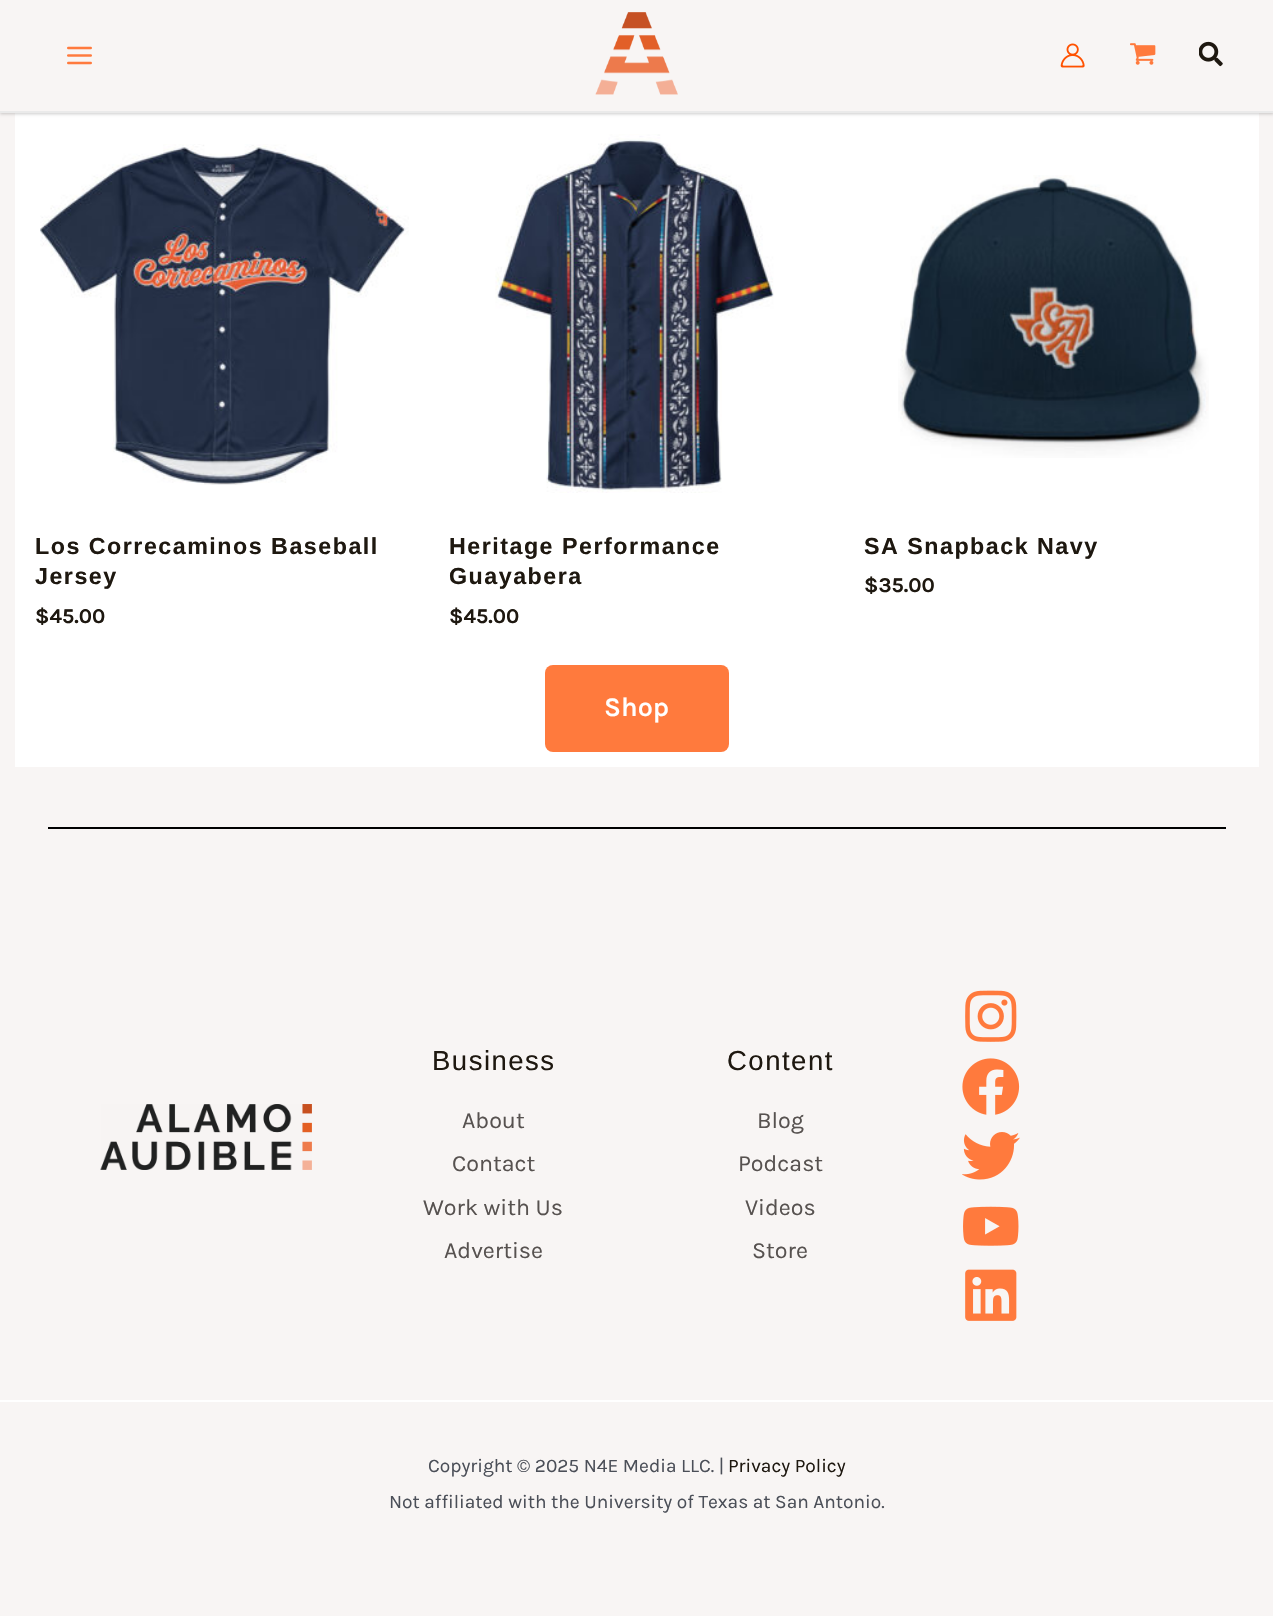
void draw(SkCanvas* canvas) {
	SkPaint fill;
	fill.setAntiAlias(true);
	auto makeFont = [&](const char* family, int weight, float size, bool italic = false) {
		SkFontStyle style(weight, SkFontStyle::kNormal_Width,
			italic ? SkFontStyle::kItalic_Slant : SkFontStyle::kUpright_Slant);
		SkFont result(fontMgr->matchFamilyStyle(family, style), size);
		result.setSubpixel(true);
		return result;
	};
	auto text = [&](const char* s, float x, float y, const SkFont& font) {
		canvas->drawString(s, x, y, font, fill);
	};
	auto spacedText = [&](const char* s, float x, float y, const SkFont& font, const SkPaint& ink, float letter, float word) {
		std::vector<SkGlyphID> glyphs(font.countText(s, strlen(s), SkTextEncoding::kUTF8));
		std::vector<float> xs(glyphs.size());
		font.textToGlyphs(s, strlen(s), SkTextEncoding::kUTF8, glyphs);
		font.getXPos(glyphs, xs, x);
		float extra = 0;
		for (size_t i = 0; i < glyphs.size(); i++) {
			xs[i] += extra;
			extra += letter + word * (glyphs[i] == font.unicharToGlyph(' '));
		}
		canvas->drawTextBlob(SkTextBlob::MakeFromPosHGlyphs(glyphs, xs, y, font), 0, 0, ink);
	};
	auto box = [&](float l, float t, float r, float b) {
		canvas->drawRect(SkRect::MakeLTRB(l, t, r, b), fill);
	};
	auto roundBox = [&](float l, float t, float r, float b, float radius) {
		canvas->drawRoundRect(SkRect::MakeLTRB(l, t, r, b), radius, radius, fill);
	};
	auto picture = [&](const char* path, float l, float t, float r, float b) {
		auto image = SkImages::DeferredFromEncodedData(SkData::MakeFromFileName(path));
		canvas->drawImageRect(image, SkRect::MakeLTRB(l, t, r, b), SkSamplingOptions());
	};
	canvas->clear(0xFFF8F5F4);
	fill.setColor(0xFFFFFFFF);
	box(15, 113, 1259, 767);
	fill.setColor(0x33000000);
	fill.setMaskFilter(SkMaskFilter::MakeBlur(kNormal_SkBlurStyle, 1.5f));
	canvas->drawRect(SkRect::MakeLTRB(0, 2, 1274, 114), fill);
	fill.setMaskFilter(nullptr);
	fill.setColor(0xFFF8F5F4);
	box(0, 0, 1273, 111);
	fill.setColor(0xFFEAEAEA);
	box(0, 111, 1273, 113);
	picture("image0.png", 67, 46, 92, 65);
	picture("image1.png", 595, 12, 678, 95);
	picture("image2.png", 1060, 43, 1085, 68);
	picture("image3.png", 1130, 43, 1156, 65);
	picture("image4.png", 1199, 41, 1223, 67);
	picture("image5.png", 40, 144, 409, 485);
	picture("image6.png", 495, 134, 774, 493);
	picture("image7.png", 898, 175, 1209, 458);
	fill.setColor(0xFFFF7A3D);
	roundBox(545, 665, 729, 752, 8);
	fill.setColor(0xFF000000);
	box(48, 827, 1226, 829);
	picture("image8.png", 100, 1104, 312, 1170);
	picture("image9.png", 965, 990, 1017, 1042);
	picture("image10.png", 962, 1058, 1020, 1115);
	picture("image11.png", 962, 1132, 1020, 1180);
	picture("image12.png", 963, 1206, 1019, 1246);
	picture("image13.png", 965, 1269, 1017, 1321);
	fill.setColor(0xFFFFFFFF);
	box(0, 1400, 1273, 1402);
	auto font1 = makeFont("Liberation Sans", 700, 23.25f);
	fill.setColor(0xFF1E1810);
	spacedText("Los Correcaminos Baseball", 35, 554, font1, fill, 1.5f, 0);
	spacedText("Jersey", 35, 584, font1, fill, 1.5f, 0);
	auto font2 = makeFont("Karla", 700, 21);
	text("$45.00", 35, 623, font2);
	spacedText("Heritage Performance", 449, 554, font1, fill, 1.5f, 0);
	spacedText("Guayabera", 449, 584, font1, fill, 1.5f, 0);
	text("$45.00", 449, 623, font2);
	spacedText("SA Snapback Navy", 864, 554, font1, fill, 1.5f, 0);
	text("$35.00", 864, 592, font2);
	auto font3 = makeFont("Karla", 600, 27);
	fill.setColor(0xFFFFFFFF);
	text("Shop", 604, 716, font3);
	auto font4 = makeFont("Liberation Sans", 400, 27.5f);
	fill.setColor(0xFF1E1810);
	spacedText("Business", 432, 1070, font4, fill, 1.5f, 0);
	auto font5 = makeFont("Karla", 400, 23.25f);
	fill.setColor(0xFF575250);
	text("About", 462, 1128, font5);
	text("Contact", 452, 1171, font5);
	text("Work with Us", 423, 1215, font5);
	text("Advertise", 444, 1258, font5);
	fill.setColor(0xFF1E1810);
	spacedText("Content", 727, 1070, font4, fill, 1.5f, 0);
	fill.setColor(0xFF575250);
	text("Blog", 757, 1128, font5);
	text("Podcast", 738, 1171, font5);
	text("Videos", 745, 1215, font5);
	text("Store", 752, 1258, font5);
	auto font6 = makeFont("Karla", 400, 19.15f);
	fill.setColor(0xFF4B4F58);
	text("Copyright © 2025 N4E Media LLC. |", 428, 1472, font6);
	fill.setColor(0xFF1E1810);
	text("Privacy Policy", 728, 1472, font6);
	fill.setColor(0xFF4B4F58);
	text("Not affiliated with the University of Texas at San Antonio.", 389, 1508, font6);
}
